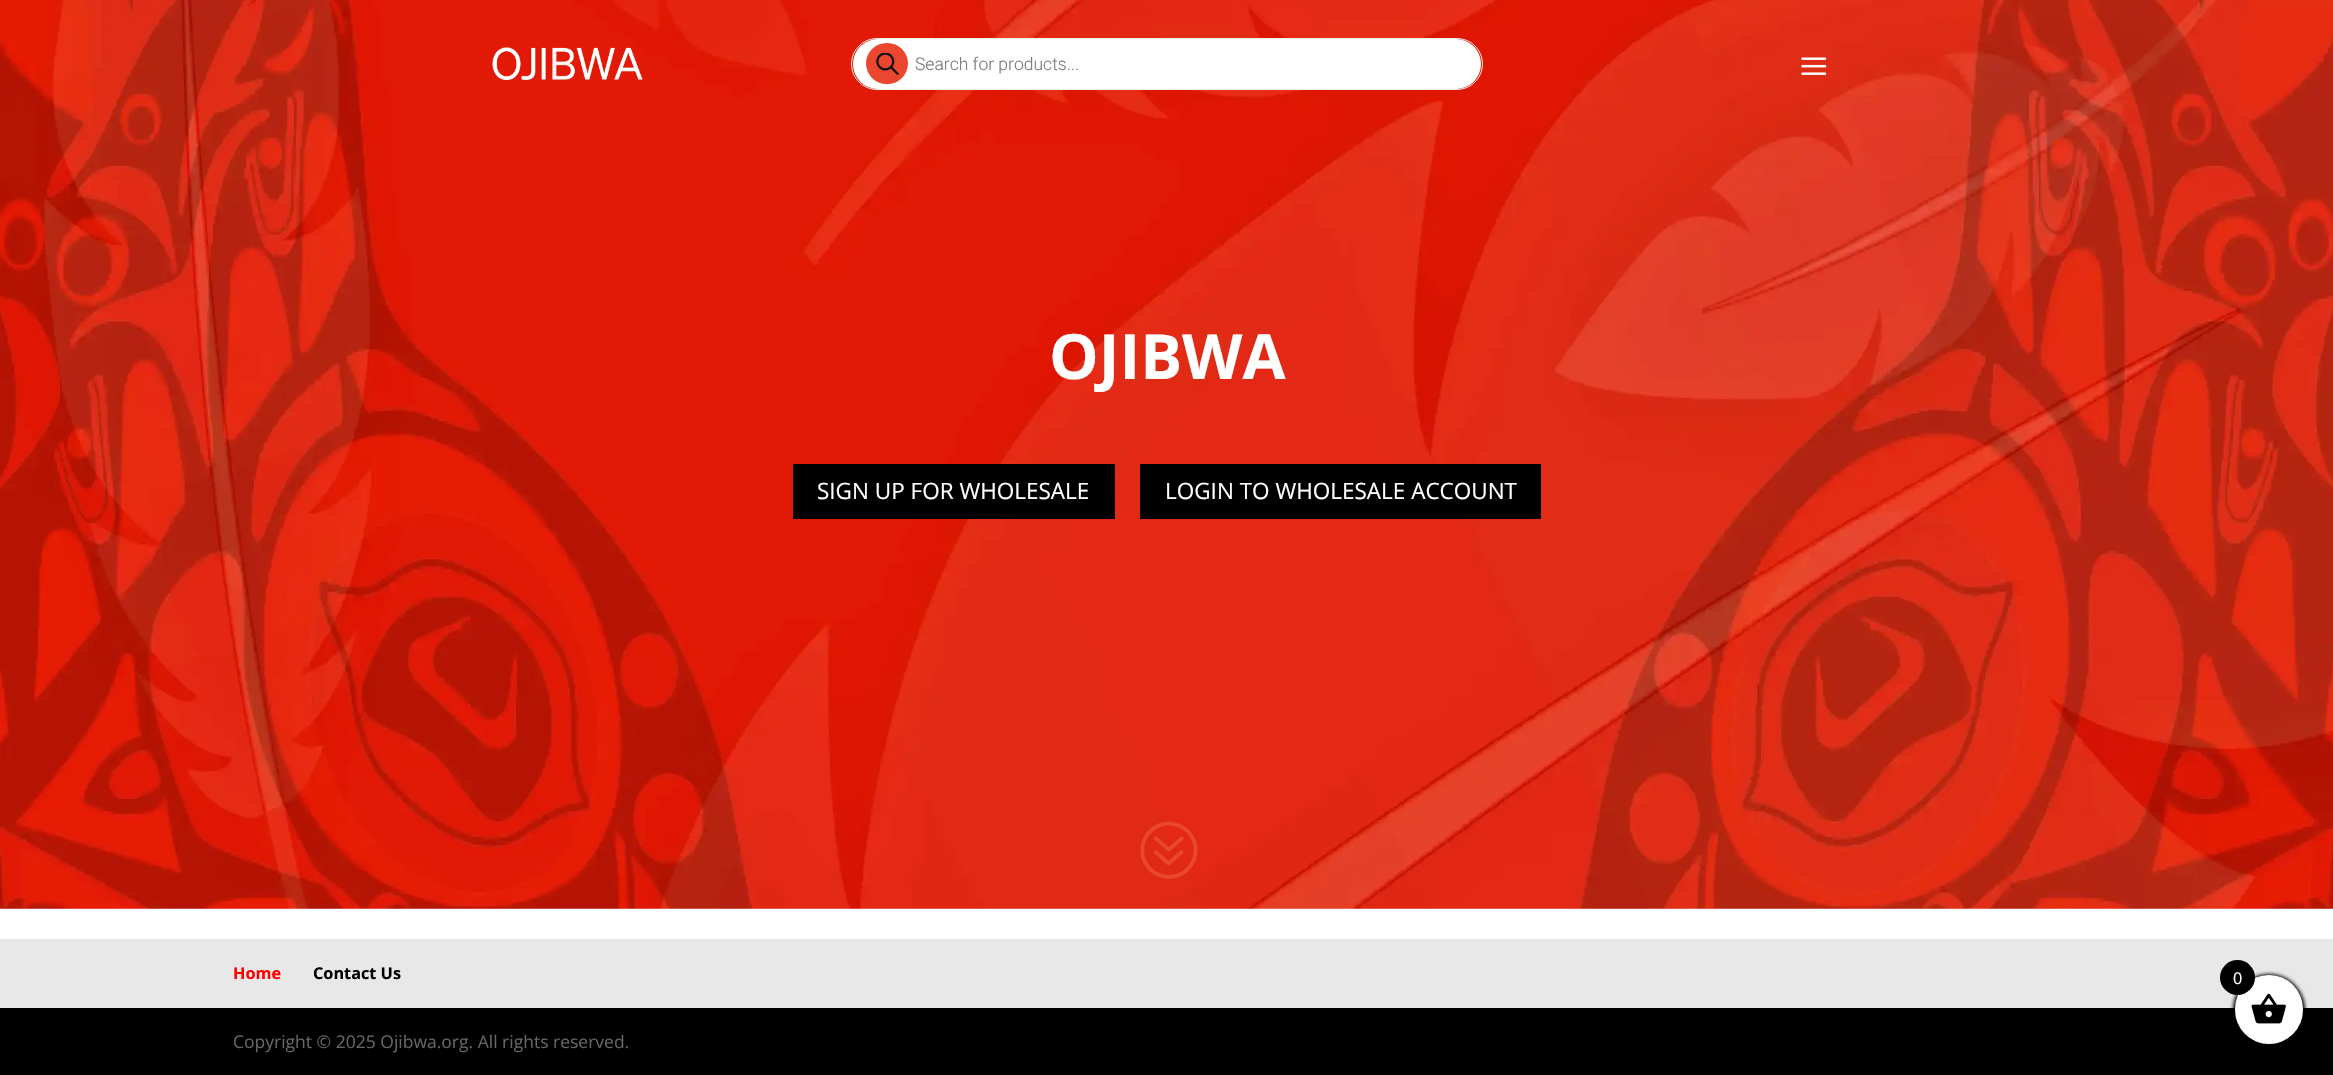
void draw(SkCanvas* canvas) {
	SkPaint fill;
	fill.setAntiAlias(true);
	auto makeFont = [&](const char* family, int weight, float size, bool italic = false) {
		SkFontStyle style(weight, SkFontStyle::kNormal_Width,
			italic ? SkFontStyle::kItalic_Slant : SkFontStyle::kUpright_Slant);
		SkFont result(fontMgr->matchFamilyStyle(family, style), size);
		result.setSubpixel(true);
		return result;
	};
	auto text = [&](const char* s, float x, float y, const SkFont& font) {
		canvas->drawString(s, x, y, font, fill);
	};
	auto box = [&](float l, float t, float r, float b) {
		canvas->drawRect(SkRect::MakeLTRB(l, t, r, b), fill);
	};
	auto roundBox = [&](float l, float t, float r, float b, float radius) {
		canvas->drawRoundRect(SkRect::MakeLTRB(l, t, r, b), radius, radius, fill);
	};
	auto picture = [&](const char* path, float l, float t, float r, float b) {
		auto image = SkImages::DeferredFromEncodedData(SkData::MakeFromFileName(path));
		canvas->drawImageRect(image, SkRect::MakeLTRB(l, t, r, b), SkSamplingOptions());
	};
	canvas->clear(0xFFFFFFFF);
	picture("image3.png", 0, 0, 2333, 909);
	picture("image0.png", 492, 47, 643, 80);
	fill.setStyle(SkPaint::kStroke_Style);
	fill.setStrokeWidth(1);
	fill.setColor(0xFFEEEEEE);
	canvas->drawRoundRect(SkRect::MakeLTRB(851.5f, 38.5f, 1482.5f, 89.5f), 25.5f, 25.5f, fill);
	fill.setStyle(SkPaint::kFill_Style);
	fill.setColor(0xFFFFFFFF);
	roundBox(853, 39, 1481, 89, 25);
	fill.setColor(0xFFEB462E);
	roundBox(866, 43, 908, 84, 20.5f);
	picture("image1.png", 876, 53, 899, 75);
	picture("image2.png", 1801, 57, 1827, 75);
	fill.setColor(0xFF000000);
	box(793, 464, 1115, 519);
	box(1140, 464, 1541, 519);
	picture("image4.png", 1140, 821, 1198, 879);
	fill.setColor(0xFFE8E8E8);
	box(0, 939, 2333, 1008);
	fill.setColor(0xFF000000);
	box(0, 1008, 2333, 1075);
	fill.setMaskFilter(SkMaskFilter::MakeBlur(kNormal_SkBlurStyle, 2.5f));
	canvas->drawRoundRect(SkRect::MakeLTRB(2235, 976, 2303, 1045), 34, 34, fill);
	fill.setMaskFilter(nullptr);
	fill.setMaskFilter(SkMaskFilter::MakeBlur(kNormal_SkBlurStyle, 2.5f));
	canvas->drawRoundRect(SkRect::MakeLTRB(2235, 976, 2303, 1045), 34, 34, fill);
	fill.setMaskFilter(nullptr);
	fill.setMaskFilter(SkMaskFilter::MakeBlur(kNormal_SkBlurStyle, 2.5f));
	canvas->drawRoundRect(SkRect::MakeLTRB(2235, 976, 2303, 1045), 34, 34, fill);
	fill.setMaskFilter(nullptr);
	fill.setColor(0xFFFFFFFF);
	roundBox(2235, 975, 2303, 1044, 34);
	fill.setColor(0xFF000000);
	canvas->drawCircle(2237.5f, 977.5f, 17.5f, fill);
	picture("image5.png", 2251, 993, 2286, 1024);
	auto font1 = makeFont("Roboto", 300, 17.5f);
	fill.setColor(0xFF777777);
	text("Search for products...", 915, 70, font1);
	auto font2 = makeFont("Open Sans", 700, 62.5f);
	fill.setColor(0xFFFFFFFF);
	text("OJIBWA", 1049, 379, font2);
	auto font3 = makeFont("Open Sans", 400, 22.5f);
	text("SIGN UP FOR WHOLESALE", 817, 499, font3);
	text("LOGIN TO WHOLESALE ACCOUNT", 1165, 499, font3);
	auto font4 = makeFont("Open Sans", 700, 16.25f);
	fill.setColor(0xFFFF0000);
	text("Home", 233, 979, font4);
	fill.setColor(0xFF000000);
	text("Contact Us", 313, 979, font4);
	auto font5 = makeFont("Open Sans", 400, 17.5f);
	fill.setColor(0xFF666666);
	text("Copyright © 2025 Ojibwa.org. All rights reserved.", 233, 1048, font5);
	auto font6 = makeFont("Open Sans", 400, 16.25f);
	fill.setColor(0xFFFFFFFF);
	text("0", 2233, 984, font6);
}
